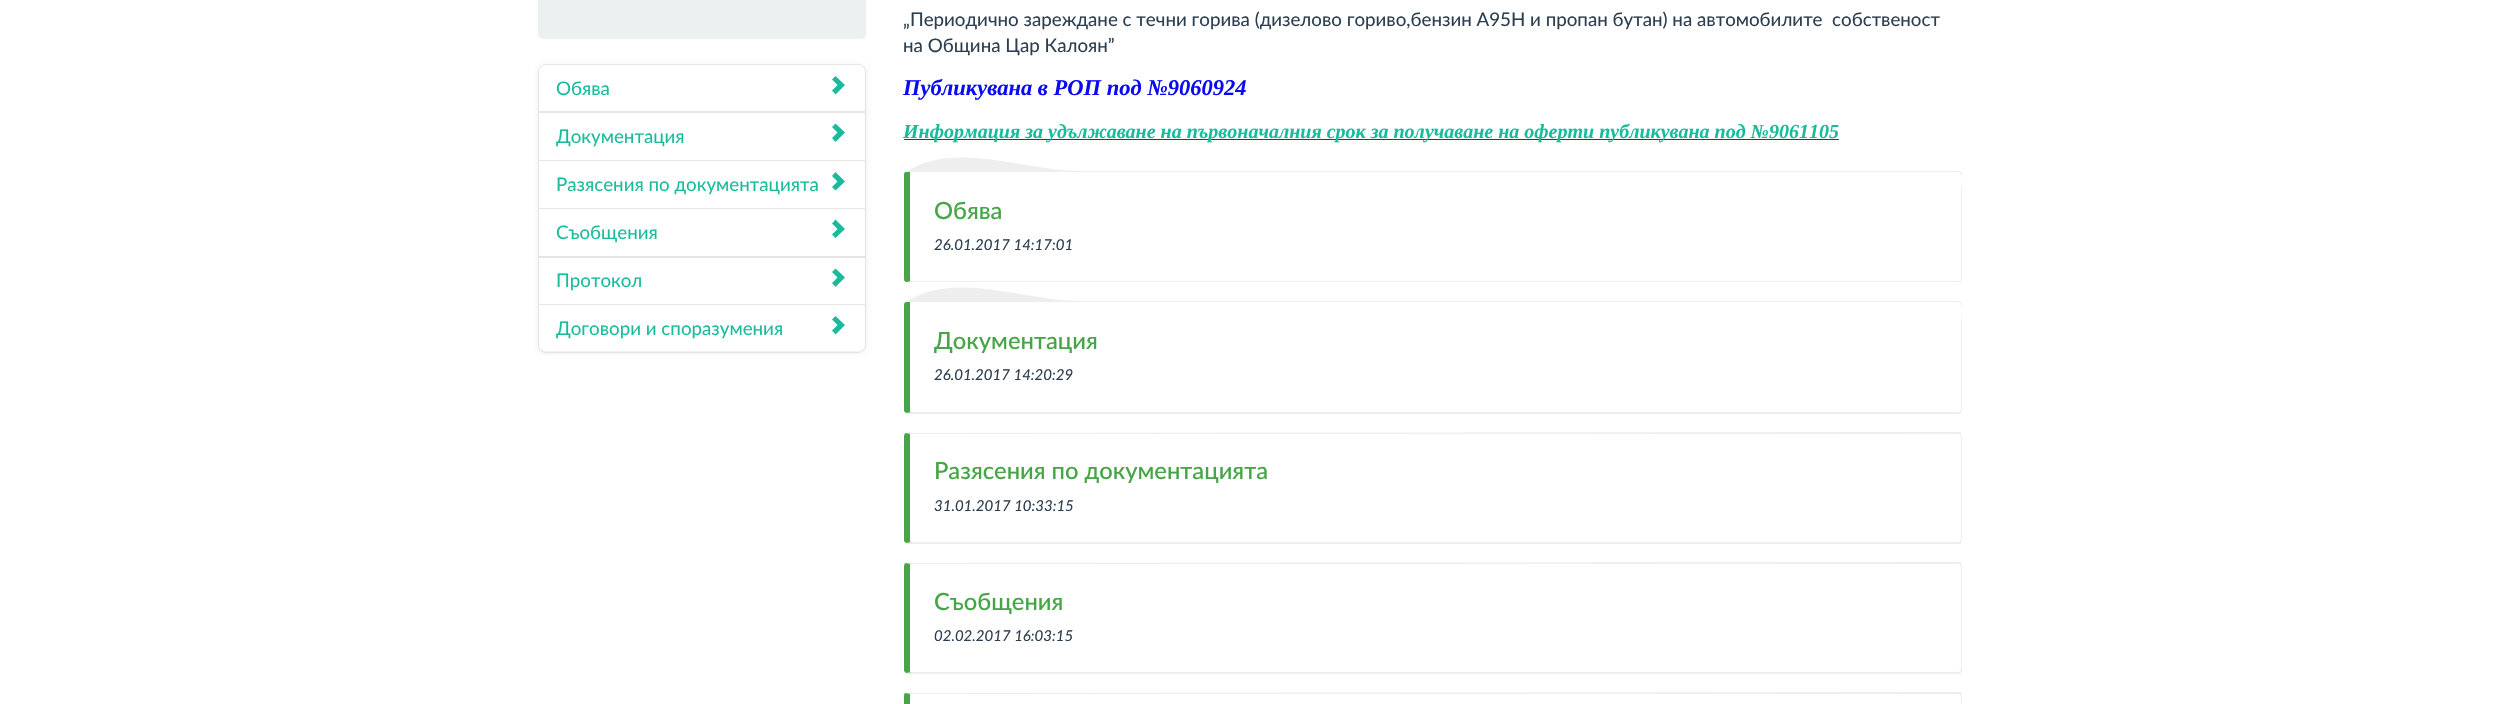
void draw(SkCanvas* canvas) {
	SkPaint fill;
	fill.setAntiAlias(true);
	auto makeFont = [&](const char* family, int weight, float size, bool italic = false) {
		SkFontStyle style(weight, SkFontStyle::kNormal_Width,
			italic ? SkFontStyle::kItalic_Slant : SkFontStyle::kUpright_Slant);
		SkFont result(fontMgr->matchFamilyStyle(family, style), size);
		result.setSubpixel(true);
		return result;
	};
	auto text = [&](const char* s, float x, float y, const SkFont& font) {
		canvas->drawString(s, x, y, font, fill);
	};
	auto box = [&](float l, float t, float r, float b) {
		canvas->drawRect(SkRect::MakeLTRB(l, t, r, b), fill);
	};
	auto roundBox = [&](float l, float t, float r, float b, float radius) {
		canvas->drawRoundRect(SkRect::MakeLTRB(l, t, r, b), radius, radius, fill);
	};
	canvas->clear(0xFFFFFFFF);
	fill.setColor(0xFFECF0F1);
	roundBox(538, -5, 866, 39, 5);
	canvas->save();
	canvas->clipPath(SkPathBuilder(SkPathFillType::kEvenOdd).moveTo(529, 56).lineTo(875, 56).lineTo(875, 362).lineTo(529, 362).close().moveTo(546, 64).lineTo(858, 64).cubicTo(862.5f, 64, 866, 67.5f, 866, 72).lineTo(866, 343).cubicTo(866, 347.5f, 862.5f, 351, 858, 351).lineTo(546, 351).cubicTo(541.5f, 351, 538, 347.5f, 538, 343).lineTo(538, 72).cubicTo(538, 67.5f, 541.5f, 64, 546, 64).close().detach(), true);
	fill.setColor(0x12000000);
	fill.setMaskFilter(SkMaskFilter::MakeBlur(kNormal_SkBlurStyle, 2.5f));
	canvas->drawRoundRect(SkRect::MakeLTRB(538, 65, 866, 353), 8, 8, fill);
	fill.setMaskFilter(nullptr);
	canvas->restore();
	fill.setStyle(SkPaint::kStroke_Style);
	fill.setStrokeWidth(1);
	fill.setColor(0xFFE5E5E5);
	canvas->drawPath(SkPathBuilder().moveTo(546, 64.5f).lineTo(858, 64.5f).cubicTo(862, 64.5f, 865.5f, 68, 865.5f, 72).lineTo(865.5f, 112.5f).lineTo(538.5f, 112.5f).lineTo(538.5f, 72).cubicTo(538.5f, 68, 542, 64.5f, 546, 64.5f).close().detach(), fill);
	fill.setStyle(SkPaint::kFill_Style);
	fill.setColor(0xFF18BC9C);
	canvas->drawPath(SkPathBuilder().moveTo(832, 90.5f).lineTo(837.5f, 85).lineTo(832, 79.5f).lineTo(835.5f, 76).lineTo(845, 85).lineTo(835.5f, 94.5f).close().detach(), fill);
	fill.setStyle(SkPaint::kStroke_Style);
	fill.setColor(0xFFE5E5E5);
	canvas->drawRect(SkRect::MakeLTRB(538.5f, 111.5f, 865.5f, 160.5f), fill);
	fill.setStyle(SkPaint::kFill_Style);
	fill.setColor(0xFF18BC9C);
	canvas->drawPath(SkPathBuilder().moveTo(832, 138).lineTo(837.5f, 132.5f).lineTo(832, 127).lineTo(835.5f, 123.5f).lineTo(845, 132.5f).lineTo(835.5f, 142).close().detach(), fill);
	fill.setStyle(SkPaint::kStroke_Style);
	fill.setColor(0xFFE5E5E5);
	canvas->drawRect(SkRect::MakeLTRB(538.5f, 160.5f, 865.5f, 208.5f), fill);
	fill.setStyle(SkPaint::kFill_Style);
	fill.setColor(0xFF18BC9C);
	canvas->drawPath(SkPathBuilder().moveTo(832, 187).lineTo(837.5f, 181.5f).lineTo(832, 176).lineTo(835.5f, 172).lineTo(845, 181.5f).lineTo(835.5f, 190.5f).close().detach(), fill);
	fill.setStyle(SkPaint::kStroke_Style);
	fill.setColor(0xFFE5E5E5);
	canvas->drawRect(SkRect::MakeLTRB(538.5f, 208.5f, 865.5f, 257.5f), fill);
	fill.setStyle(SkPaint::kFill_Style);
	fill.setColor(0xFF18BC9C);
	canvas->drawPath(SkPathBuilder().moveTo(832, 234.5f).lineTo(837.5f, 229).lineTo(832, 223.5f).lineTo(835.5f, 219.5f).lineTo(845, 229).lineTo(835.5f, 238).close().detach(), fill);
	fill.setStyle(SkPaint::kStroke_Style);
	fill.setColor(0xFFE5E5E5);
	canvas->drawRect(SkRect::MakeLTRB(538.5f, 256.5f, 865.5f, 304.5f), fill);
	fill.setStyle(SkPaint::kFill_Style);
	fill.setColor(0xFF18BC9C);
	canvas->drawPath(SkPathBuilder().moveTo(832, 283).lineTo(837.5f, 277.5f).lineTo(832, 272).lineTo(835.5f, 268.5f).lineTo(845, 277.5f).lineTo(835.5f, 287).close().detach(), fill);
	fill.setStyle(SkPaint::kStroke_Style);
	fill.setColor(0xFFE5E5E5);
	canvas->drawPath(SkPathBuilder().moveTo(538.5f, 304.5f).lineTo(865.5f, 304.5f).lineTo(865.5f, 345).cubicTo(865.5f, 349, 862, 352.5f, 858, 352.5f).lineTo(546, 352.5f).cubicTo(542, 352.5f, 538.5f, 349, 538.5f, 345).close().detach(), fill);
	fill.setStyle(SkPaint::kFill_Style);
	fill.setColor(0xFF18BC9C);
	canvas->drawPath(SkPathBuilder().moveTo(832, 330.5f).lineTo(837.5f, 325).lineTo(832, 319.5f).lineTo(835.5f, 316).lineTo(845, 325).lineTo(835.5f, 334.5f).close().detach(), fill);
	fill.setColor(0xFF2C3E50);
	box(904, 139, 1839, 140);
	fill.setColor(0xFFEEEEEE);
	canvas->drawPath(SkPathBuilder().moveTo(910, 172).lineTo(906, 172).cubicTo(955, 140, 1023, 171, 1082, 171).lineTo(1960, 171).lineTo(1961, 172).lineTo(1960, 173).lineTo(1959, 172).close().detach(), fill);
	canvas->drawPath(SkPathBuilder().moveTo(1961, 172).lineTo(1962, 175).lineTo(1962, 279).lineTo(1961, 281).lineTo(1960, 280).lineTo(1961, 279).lineTo(1961, 192).cubicTo(1961, 186, 1964, 179, 1960, 173).close().detach(), fill);
	canvas->drawPath(SkPathBuilder().moveTo(1961, 281).lineTo(1959, 282).lineTo(907, 282).lineTo(911, 281).lineTo(1959, 281).lineTo(1960, 280).close().detach(), fill);
	fill.setColor(0xFF46A546);
	canvas->drawPath(SkPathBuilder().moveTo(907, 282).cubicTo(905, 282, 904, 281, 904, 279).lineTo(904, 175).cubicTo(904, 174, 904, 172, 906, 172).lineTo(910, 172).lineTo(910, 281).lineTo(911, 281).close().detach(), fill);
	fill.setColor(0xFFEEEEEE);
	canvas->drawPath(SkPathBuilder().moveTo(910, 302).lineTo(906, 302).cubicTo(955, 270, 1023, 301, 1082, 301).lineTo(1960, 301).lineTo(1961, 302).lineTo(1960, 303).lineTo(1959, 302).close().detach(), fill);
	canvas->drawPath(SkPathBuilder().moveTo(1961, 302).lineTo(1962, 305).lineTo(1962, 358).lineTo(1962, 410).lineTo(1961, 413).lineTo(1960, 411).lineTo(1961, 410).lineTo(1961, 322).cubicTo(1961, 316, 1964, 309, 1960, 303).close().detach(), fill);
	canvas->drawPath(SkPathBuilder().moveTo(906, 414).lineTo(906, 413).lineTo(912, 412).lineTo(1959, 412).lineTo(1960, 411).lineTo(1961, 413).lineTo(1960, 414).close().detach(), fill);
	fill.setColor(0xFF46A546);
	canvas->drawPath(SkPathBuilder().moveTo(906, 413).lineTo(904, 411).lineTo(904, 305).cubicTo(904, 303, 905, 302, 906, 302).lineTo(910, 302).lineTo(910, 412).lineTo(912, 412).close().detach(), fill);
	fill.setColor(0xFFEEEEEE);
	canvas->drawPath(SkPathBuilder().moveTo(905, 433).lineTo(1961, 432).lineTo(1961, 434).lineTo(1960, 435).lineTo(1959, 434).lineTo(911, 434).close().detach(), fill);
	canvas->drawPath(SkPathBuilder().moveTo(1961, 434).lineTo(1962, 436).lineTo(1962, 540).lineTo(1961, 543).lineTo(1960, 541).lineTo(1961, 540).lineTo(1961, 436).lineTo(1960, 435).close().detach(), fill);
	canvas->drawPath(SkPathBuilder().moveTo(906, 544).lineTo(906, 543).lineTo(912, 542).lineTo(1959, 542).lineTo(1960, 541).lineTo(1961, 543).lineTo(1960, 544).close().detach(), fill);
	fill.setColor(0xFF46A546);
	canvas->drawPath(SkPathBuilder().moveTo(910, 434).lineTo(910, 542).lineTo(912, 542).lineTo(906, 543).lineTo(904, 541).lineTo(904, 436).lineTo(905, 433).lineTo(911, 434).close().detach(), fill);
	fill.setColor(0xFFEEEEEE);
	canvas->drawPath(SkPathBuilder().moveTo(905, 563).lineTo(1961, 562).lineTo(1961, 564).lineTo(1960, 565).lineTo(1959, 564).lineTo(911, 564).close().detach(), fill);
	canvas->drawPath(SkPathBuilder().moveTo(1961, 564).lineTo(1962, 566).lineTo(1962, 670).lineTo(1961, 673).lineTo(1960, 671).lineTo(1961, 670).lineTo(1961, 566).lineTo(1960, 565).close().detach(), fill);
	canvas->drawPath(SkPathBuilder().moveTo(906, 674).lineTo(906, 673).lineTo(912, 672).lineTo(1959, 672).lineTo(1960, 671).lineTo(1961, 673).lineTo(1960, 674).close().detach(), fill);
	fill.setColor(0xFF46A546);
	canvas->drawPath(SkPathBuilder().moveTo(910, 564).lineTo(910, 672).lineTo(912, 672).lineTo(906, 673).lineTo(904, 671).lineTo(904, 566).lineTo(905, 563).lineTo(911, 564).close().detach(), fill);
	fill.setColor(0xFFEEEEEE);
	canvas->drawPath(SkPathBuilder().moveTo(905, 693).lineTo(1961, 692).lineTo(1961, 694).lineTo(1960, 695).lineTo(1959, 694).lineTo(911, 694).close().detach(), fill);
	canvas->drawPath(SkPathBuilder().moveTo(1961, 694).lineTo(1962, 696).lineTo(1962, 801).lineTo(1961, 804).lineTo(1961, 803).lineTo(1961, 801).lineTo(1961, 696).lineTo(1960, 695).close().detach(), fill);
	fill.setColor(0xFF46A546);
	canvas->drawPath(SkPathBuilder().moveTo(910, 694).lineTo(910, 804).lineTo(906, 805).cubicTo(905, 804, 904, 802, 904, 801).lineTo(904, 696).cubicTo(904, 695, 904, 694, 905, 693).lineTo(911, 694).close().detach(), fill);
	auto font1 = makeFont("Lato", 400, 18.75f);
	fill.setColor(0xFF18BC9C);
	text("Обява", 556, 95, font1);
	text("Документация", 556, 143, font1);
	text("Разясения по документацията", 556, 191, font1);
	text("Съобщения", 556, 239, font1);
	text("Протокол", 556, 287, font1);
	text("Договори и споразумения", 556, 335, font1);
	fill.setColor(0xFF2C3E50);
	text("„Периодично зареждане с течни горива (дизелово гориво,бензин А95H и пропан бутан) на автомобилите  собственост", 903, 26, font1);
	text("на Община Цар Калоян”", 903, 52, font1);
	auto font2 = makeFont("Liberation Serif", 700, 22.5f, true);
	fill.setColor(0xFF0A0AF4);
	text("Публикувана в РОП под №9060924", 903, 95, font2);
	auto font3 = makeFont("Liberation Serif", 700, 20, true);
	fill.setColor(0xFF18BC9C);
	text("Информация за удължаване на първоначалния срок за получаване на оферти публикувана под №9061105", 903, 138, font3);
	auto font4 = makeFont("Lato", 500, 23.75f);
	fill.setColor(0xFF46A546);
	text("Обява", 934, 219, font4);
	auto font5 = makeFont("Lato", 400, 15, true);
	fill.setColor(0xFF2C3E50);
	text("26.01.2017 14:17:01", 934, 250, font5);
	fill.setColor(0xFF46A546);
	text("Документация", 934, 349, font4);
	fill.setColor(0xFF2C3E50);
	text("26.01.2017 14:20:29", 934, 380, font5);
	fill.setColor(0xFF46A546);
	text("Разясения по документацията", 934, 479, font4);
	fill.setColor(0xFF2C3E50);
	text("31.01.2017 10:33:15", 934, 511, font5);
	fill.setColor(0xFF46A546);
	text("Съобщения", 934, 610, font4);
	fill.setColor(0xFF2C3E50);
	text("02.02.2017 16:03:15", 934, 641, font5);
}
